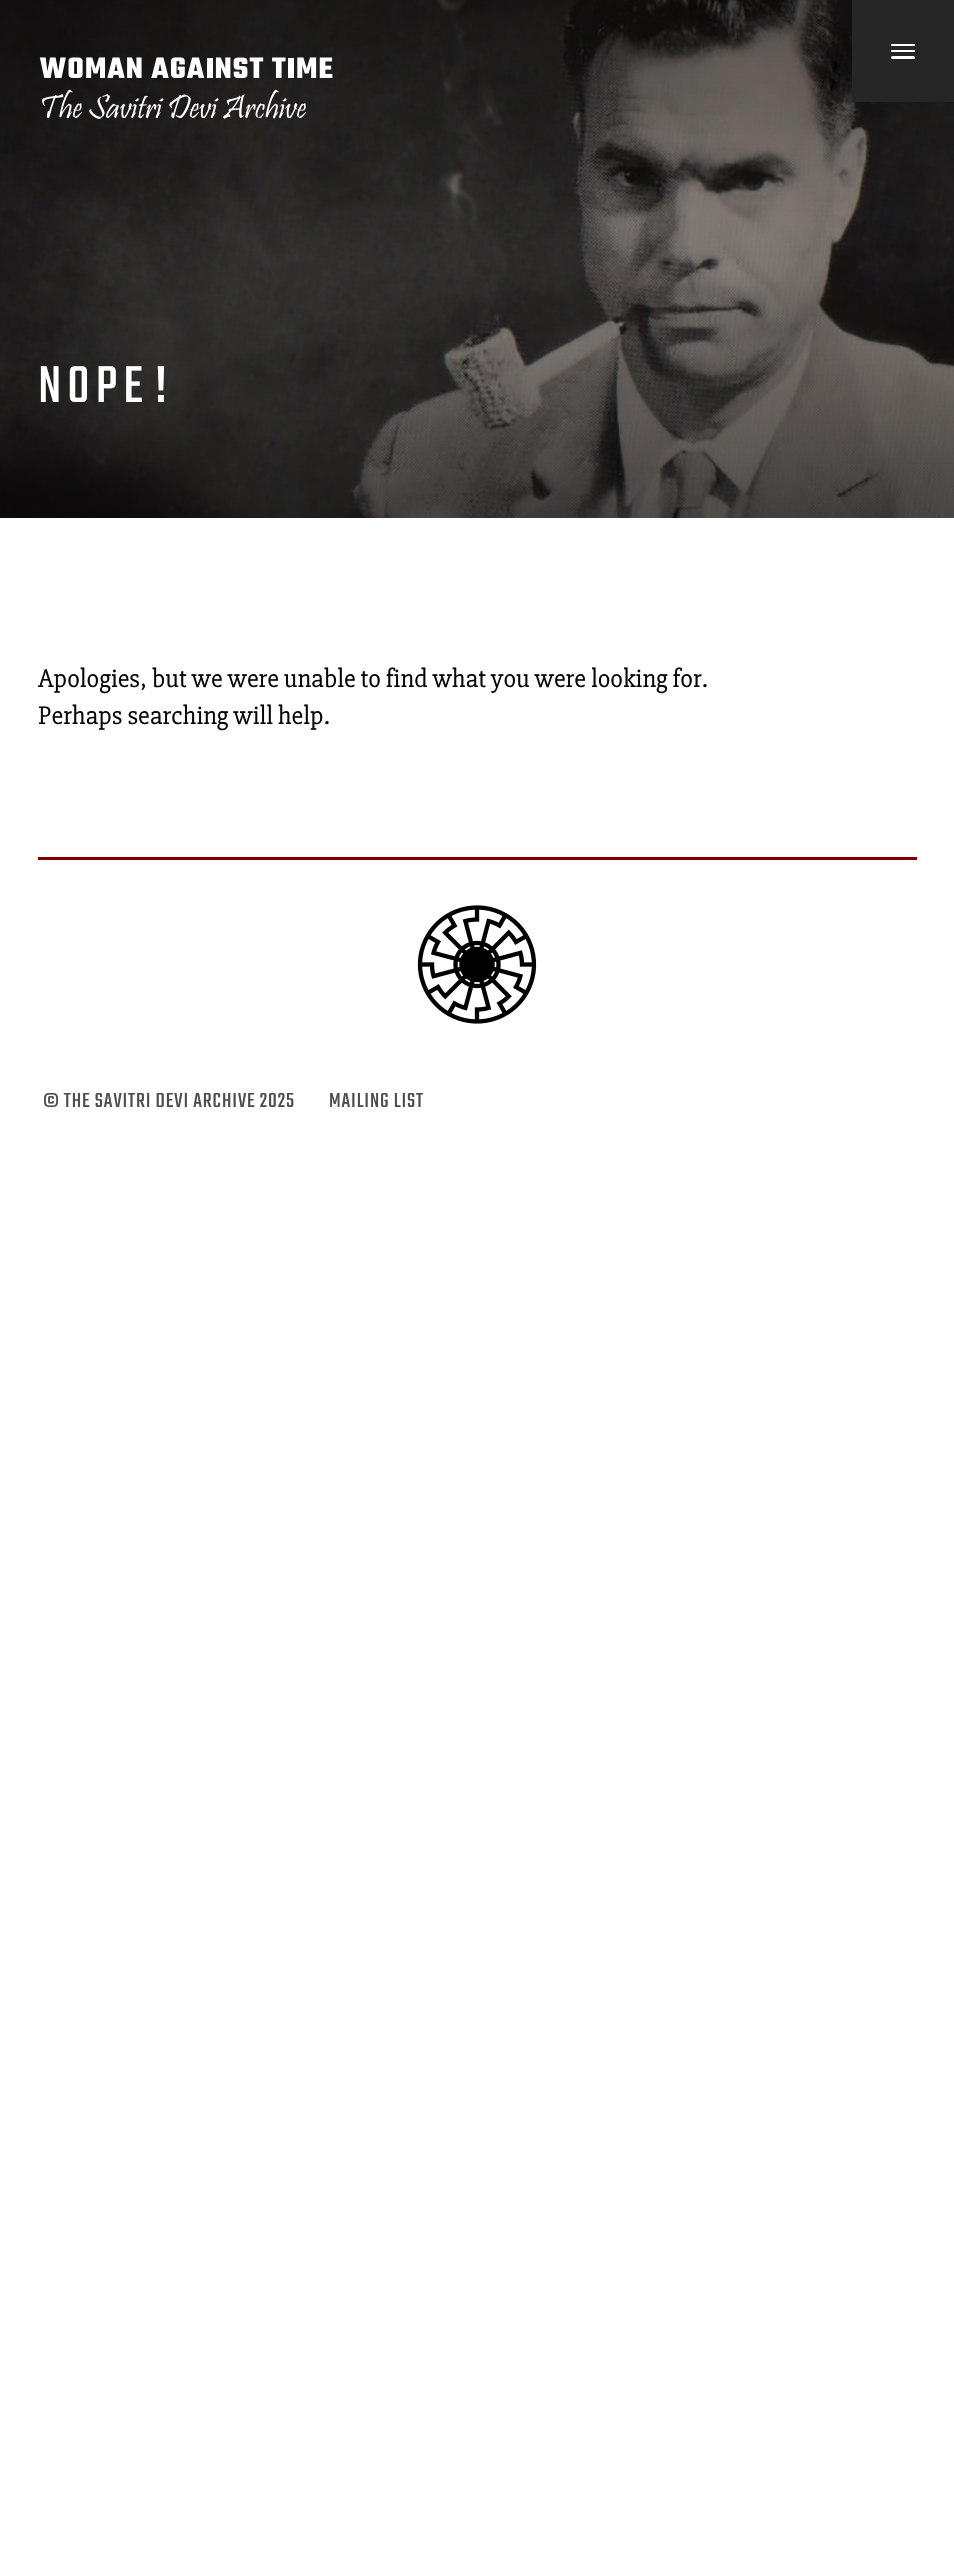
void draw(SkCanvas* canvas) {
	SkPaint fill;
	fill.setAntiAlias(true);
	auto makeFont = [&](const char* family, int weight, float size, bool italic = false) {
		SkFontStyle style(weight, SkFontStyle::kNormal_Width,
			italic ? SkFontStyle::kItalic_Slant : SkFontStyle::kUpright_Slant);
		SkFont result(fontMgr->matchFamilyStyle(family, style), size);
		result.setSubpixel(true);
		return result;
	};
	auto text = [&](const char* s, float x, float y, const SkFont& font) {
		canvas->drawString(s, x, y, font, fill);
	};
	auto spacedText = [&](const char* s, float x, float y, const SkFont& font, const SkPaint& ink, float letter, float word) {
		std::vector<SkGlyphID> glyphs(font.countText(s, strlen(s), SkTextEncoding::kUTF8));
		std::vector<float> xs(glyphs.size());
		font.textToGlyphs(s, strlen(s), SkTextEncoding::kUTF8, glyphs);
		font.getXPos(glyphs, xs, x);
		float extra = 0;
		for (size_t i = 0; i < glyphs.size(); i++) {
			xs[i] += extra;
			extra += letter + word * (glyphs[i] == font.unicharToGlyph(' '));
		}
		canvas->drawTextBlob(SkTextBlob::MakeFromPosHGlyphs(glyphs, xs, y, font), 0, 0, ink);
	};
	auto box = [&](float l, float t, float r, float b) {
		canvas->drawRect(SkRect::MakeLTRB(l, t, r, b), fill);
	};
	auto roundBox = [&](float l, float t, float r, float b, float radius) {
		canvas->drawRoundRect(SkRect::MakeLTRB(l, t, r, b), radius, radius, fill);
	};
	auto picture = [&](const char* path, float l, float t, float r, float b) {
		auto image = SkImages::DeferredFromEncodedData(SkData::MakeFromFileName(path));
		canvas->drawImageRect(image, SkRect::MakeLTRB(l, t, r, b), SkSamplingOptions());
	};
	canvas->clear(0xFFFFFFFF);
	picture("image1.png", 0, 0, 954, 518);
	picture("image0.png", 39, 57, 333, 119);
	fill.setColor(0xFF262626);
	box(852, 0, 954, 102);
	fill.setColor(0xFFFFFFFF);
	roundBox(891, 44, 915, 46, 1);
	roundBox(891, 50, 915, 52, 1);
	roundBox(891, 56, 915, 59, 1.5f);
	fill.setColor(0xFF800000);
	box(38, 857, 917, 860);
	picture("image2.png", 417, 905, 537, 1024);
	auto font1 = makeFont("Teko", 400, 57);
	fill.setColor(0xFFFFFFFF);
	spacedText("NOPE !", 38, 402, font1, fill, 6, 0);
	auto font2 = makeFont("Slabo 27px", 400, 26.25f);
	fill.setColor(0xFF080808);
	text("Apologies, but we were unable to find what you were looking for.", 38, 687, font2);
	text("Perhaps searching will help.", 38, 724, font2);
	auto font3 = makeFont("Teko", 400, 22.5f);
	fill.setColor(0xFF4D4D4D);
	spacedText("© THE SAVITRI DEVI ARCHIVE 2025", 43, 1107, font3, fill, 0.9f, 0);
	spacedText("MAILING LIST", 329, 1107, font3, fill, 0.9f, 0);
}
